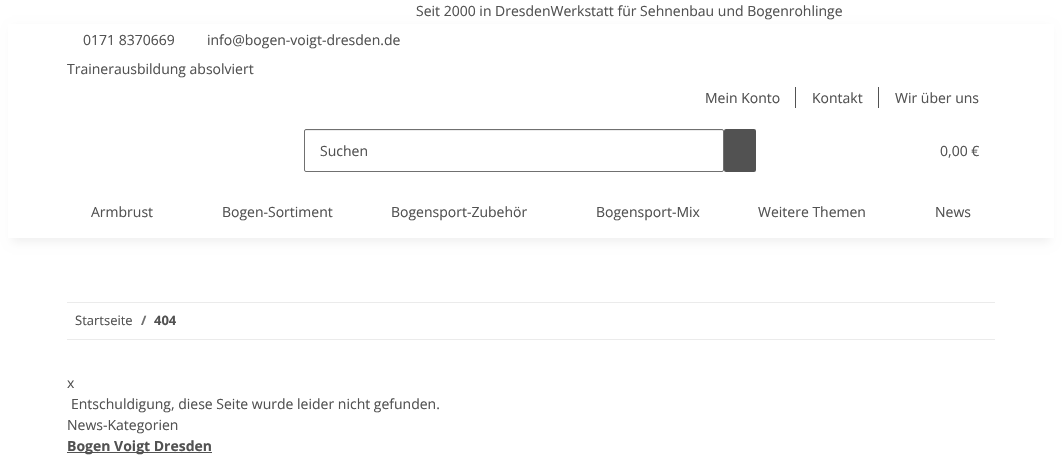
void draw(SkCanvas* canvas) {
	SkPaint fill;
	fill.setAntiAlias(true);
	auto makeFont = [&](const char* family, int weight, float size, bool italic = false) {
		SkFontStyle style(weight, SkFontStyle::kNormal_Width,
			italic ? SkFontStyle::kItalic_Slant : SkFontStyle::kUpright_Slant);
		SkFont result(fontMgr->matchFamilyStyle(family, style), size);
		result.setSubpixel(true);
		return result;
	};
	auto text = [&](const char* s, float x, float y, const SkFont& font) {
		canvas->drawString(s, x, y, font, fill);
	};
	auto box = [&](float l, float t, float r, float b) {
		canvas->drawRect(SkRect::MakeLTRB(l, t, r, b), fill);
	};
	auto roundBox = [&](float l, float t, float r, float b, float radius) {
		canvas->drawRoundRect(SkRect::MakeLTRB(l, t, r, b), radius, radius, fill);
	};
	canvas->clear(0xFFFFFFFF);
	fill.setColor(0x0F000000);
	fill.setMaskFilter(SkMaskFilter::MakeBlur(kNormal_SkBlurStyle, 4.5f));
	canvas->drawRect(SkRect::MakeLTRB(12, 28, 1050, 242), fill);
	fill.setMaskFilter(nullptr);
	fill.setColor(0xFFFFFFFF);
	box(8, 24, 1054, 238);
	fill.setColor(0xFF525252);
	box(795, 87, 796, 108);
	box(878, 87, 879, 108);
	fill.setColor(0xFFECECEC);
	canvas->drawPath(SkPathBuilder().moveTo(306, 131).lineTo(722, 131).lineTo(723, 131).lineTo(723, 132).lineTo(723, 130).lineTo(514, 130).lineTo(306, 130).lineTo(305, 131).lineTo(305, 132).cubicTo(305, 131, 305, 131, 306, 131).close().detach(), fill);
	fill.setStyle(SkPaint::kStroke_Style);
	fill.setStrokeWidth(1);
	fill.setColor(0xFF707070);
	canvas->drawRoundRect(SkRect::MakeLTRB(304.5f, 129.5f, 723.5f, 171.5f), 1.5f, 1.5f, fill);
	fill.setStyle(SkPaint::kFill_Style);
	fill.setColor(0xFF525252);
	roundBox(724, 129, 756, 172, 2);
	fill.setColor(0xFFEBEBEB);
	box(67, 302, 995, 303);
	box(67, 339, 995, 340);
	fill.setColor(0xFF525252);
	box(67, 452, 212, 453);
	auto font1 = makeFont("Open Sans", 400, 14);
	text("Seit 2000 in DresdenWerkstatt für Sehnenbau und Bogenrohlinge", 416, 16, font1);
	text("0171 8370669", 83, 45, font1);
	text("info@bogen-voigt-dresden.de", 207, 45, font1);
	text("Trainerausbildung absolviert", 67, 74, font1);
	text("Mein Konto", 705, 103, font1);
	text("Kontakt", 812, 103, font1);
	text("Wir über uns", 895, 103, font1);
	text("Suchen", 320, 156, font1);
	text("0,00 €", 940, 156, font1);
	text("Armbrust", 91, 217, font1);
	text("Bogen-Sortiment", 222, 217, font1);
	text("Bogensport-Zubehör", 391, 217, font1);
	text("Bogensport-Mix", 596, 217, font1);
	text("Weitere Themen", 758, 217, font1);
	text("News", 935, 217, font1);
	auto font2 = makeFont("Open Sans", 400, 13);
	text("Startseite", 75, 325, font2);
	auto font3 = makeFont("Open Sans", 700, 13);
	fill.setColor(0xFF707070);
	text("/", 141, 325, font3);
	fill.setColor(0xFF525252);
	text("404", 154, 325, font3);
	text("x", 67, 388, font1);
	text("Entschuldigung, diese Seite wurde leider nicht gefunden.", 71, 409, font1);
	text("News-Kategorien", 67, 430, font1);
	auto font4 = makeFont("Open Sans", 700, 14);
	text("Bogen Voigt Dresden", 67, 451, font4);
}
